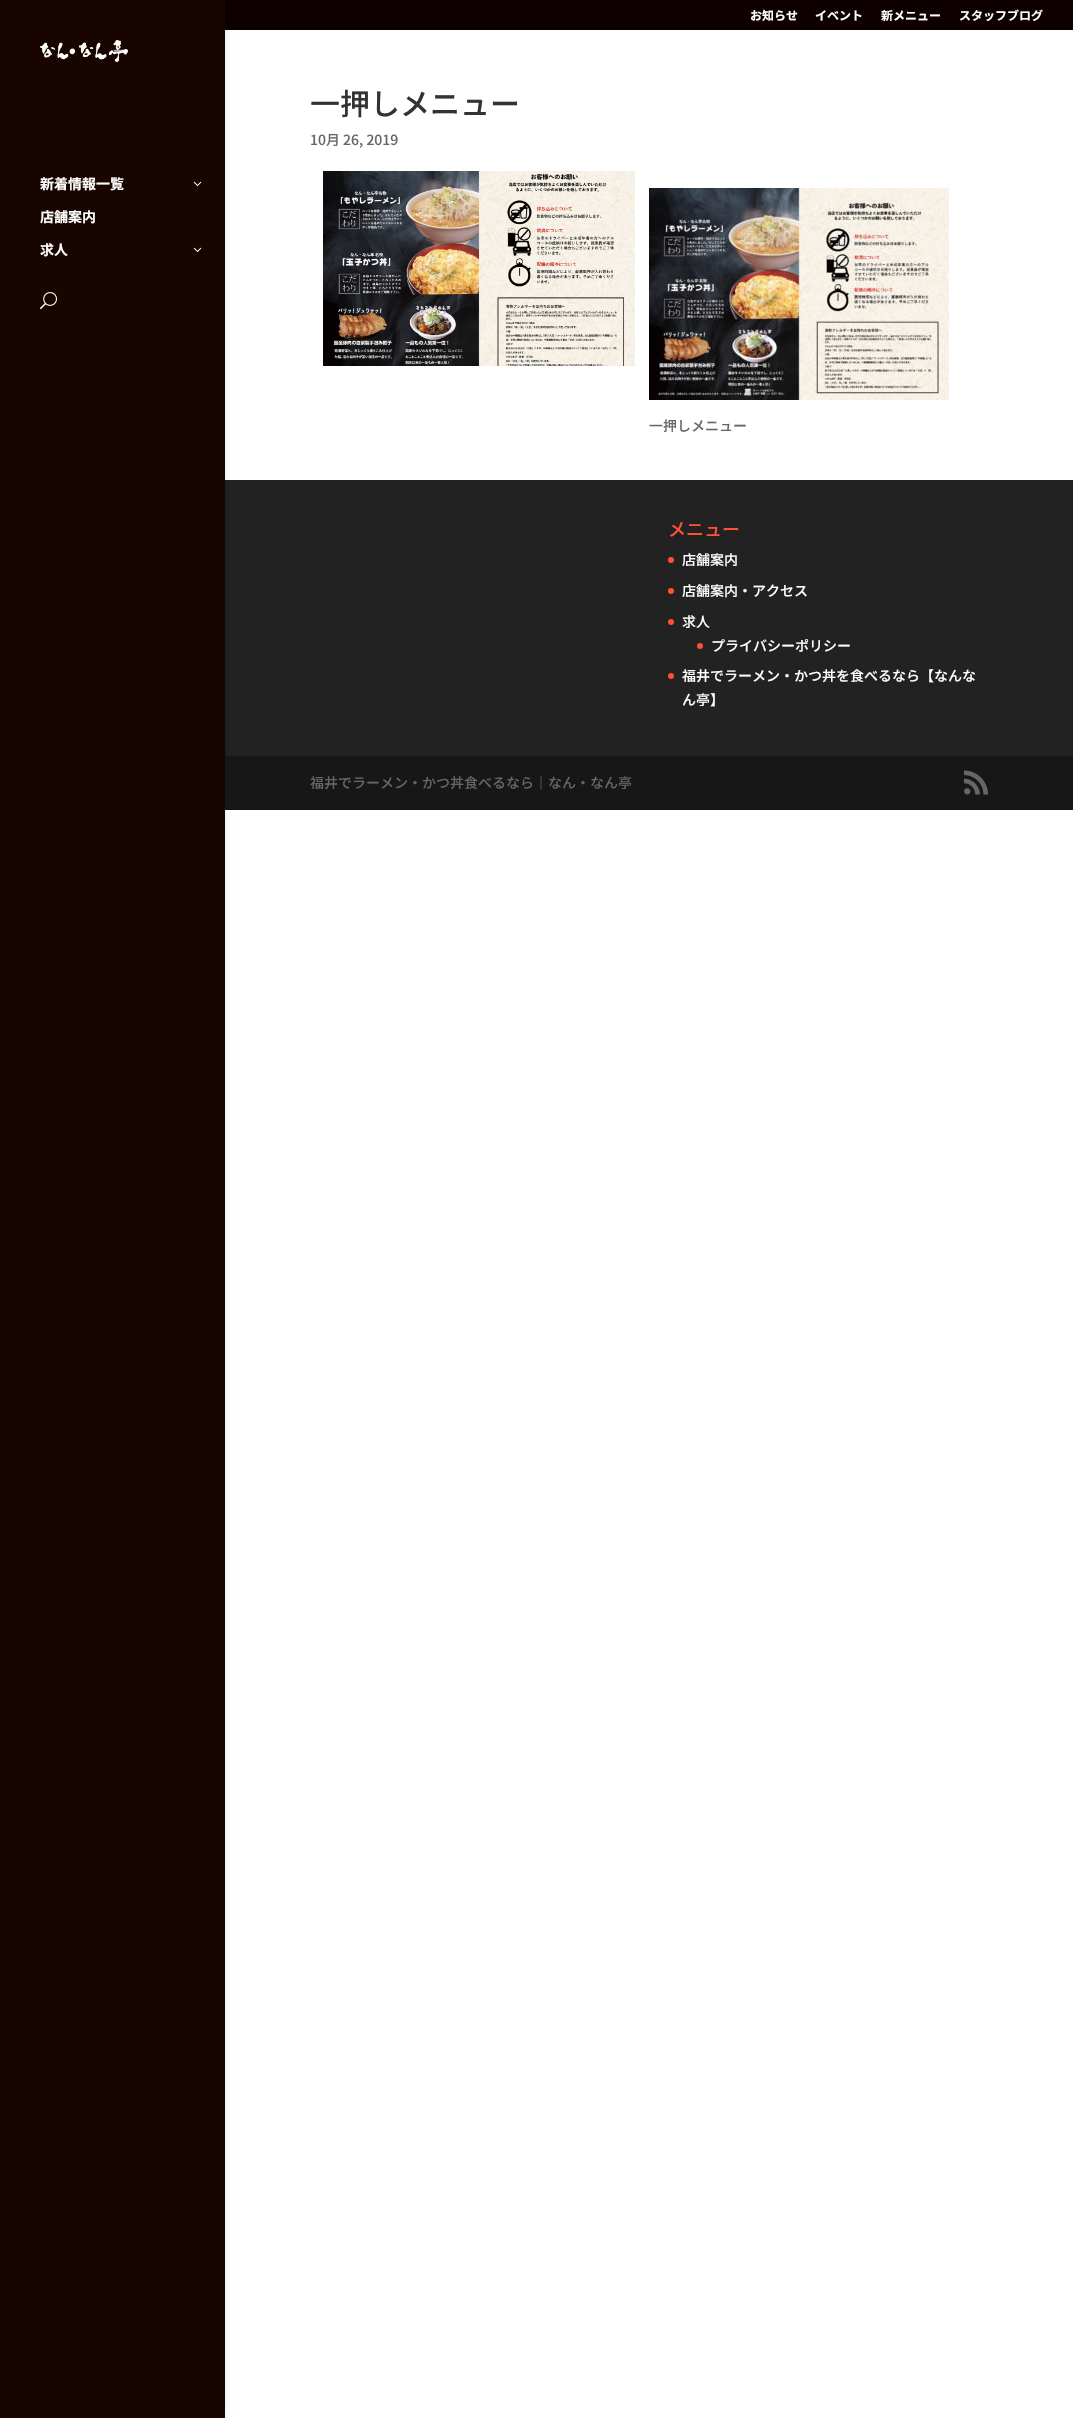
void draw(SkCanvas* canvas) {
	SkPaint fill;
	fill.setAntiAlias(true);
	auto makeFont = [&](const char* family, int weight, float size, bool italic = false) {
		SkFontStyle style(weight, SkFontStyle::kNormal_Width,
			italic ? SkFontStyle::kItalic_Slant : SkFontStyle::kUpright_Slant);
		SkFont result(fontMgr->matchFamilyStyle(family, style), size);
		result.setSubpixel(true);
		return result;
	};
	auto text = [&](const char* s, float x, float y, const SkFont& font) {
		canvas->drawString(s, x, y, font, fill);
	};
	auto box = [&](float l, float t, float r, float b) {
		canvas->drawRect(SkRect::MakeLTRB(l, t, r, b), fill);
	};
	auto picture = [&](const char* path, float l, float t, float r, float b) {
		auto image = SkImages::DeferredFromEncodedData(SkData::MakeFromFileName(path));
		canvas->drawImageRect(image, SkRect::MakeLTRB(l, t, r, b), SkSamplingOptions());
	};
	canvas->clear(0xFFFFFFFF);
	fill.setColor(0xFF0F0000);
	box(225, 0, 1073, 30);
	fill.setColor(0xFF222222);
	box(225, 480, 1073, 756);
	fill.setColor(0xFF171717);
	box(225, 756, 1073, 810);
	fill.setColor(0x1A000000);
	fill.setMaskFilter(SkMaskFilter::MakeBlur(kNormal_SkBlurStyle, 3.5f));
	canvas->drawRect(SkRect::MakeLTRB(0, 0, 225, 2418), fill);
	fill.setMaskFilter(nullptr);
	fill.setColor(0xFF190500);
	box(0, 0, 225, 2418);
	picture("image0.png", 40, 40, 128, 62);
	picture("image1.png", 193, 181, 202, 186);
	picture("image1.png", 193, 247, 202, 252);
	picture("image2.png", 40, 292, 57, 310);
	picture("image3.png", 323, 171, 635, 366);
	picture("image4.png", 649, 188, 949, 400);
	fill.setColor(0xFFFF5035);
	canvas->drawCircle(671, 560, 3, fill);
	canvas->drawCircle(671, 591, 3, fill);
	canvas->drawCircle(671, 622, 3, fill);
	canvas->drawCircle(700, 646, 3, fill);
	canvas->drawCircle(671, 676, 3, fill);
	picture("image5.png", 964, 770, 988, 795);
	auto font1 = makeFont("Noto Sans JP", 700, 12);
	fill.setColor(0xFFFFFFFF);
	text("お知らせ", 750, 20, font1);
	text("イベント", 815, 20, font1);
	text("新メニュー", 881, 20, font1);
	text("スタッフブログ", 959, 20, font1);
	auto font2 = makeFont("Noto Sans JP", 700, 14);
	text("新着情報一覧", 40, 189, font2);
	text("店舗案内", 40, 222, font2);
	text("求人", 40, 255, font2);
	auto font3 = makeFont("Noto Sans JP", 500, 30);
	fill.setColor(0xFF333333);
	text("一押しメニュー", 310, 115, font3);
	auto font4 = makeFont("Noto Sans JP", 500, 14);
	fill.setColor(0xFF666666);
	text("10月 26, 2019", 310, 145, font4);
	text("一押しメニュー", 649, 431, font4);
	auto font5 = makeFont("Noto Sans JP", 500, 18);
	fill.setColor(0xFFFF5035);
	text("メニュー", 668, 536, font5);
	fill.setColor(0xFFFFFFFF);
	text("店舗案内", 682, 565, font4);
	text("店舗案内・アクセス", 682, 596, font4);
	text("求人", 682, 627, font4);
	text("プライバシーポリシー", 711, 651, font4);
	text("福井でラーメン・かつ丼を食べるなら【なんな", 682, 681, font4);
	text("ん亭】", 682, 705, font4);
	fill.setColor(0xFF666666);
	text("福井でラーメン・かつ丼食べるなら｜なん・なん亭", 310, 788, font4);
}
